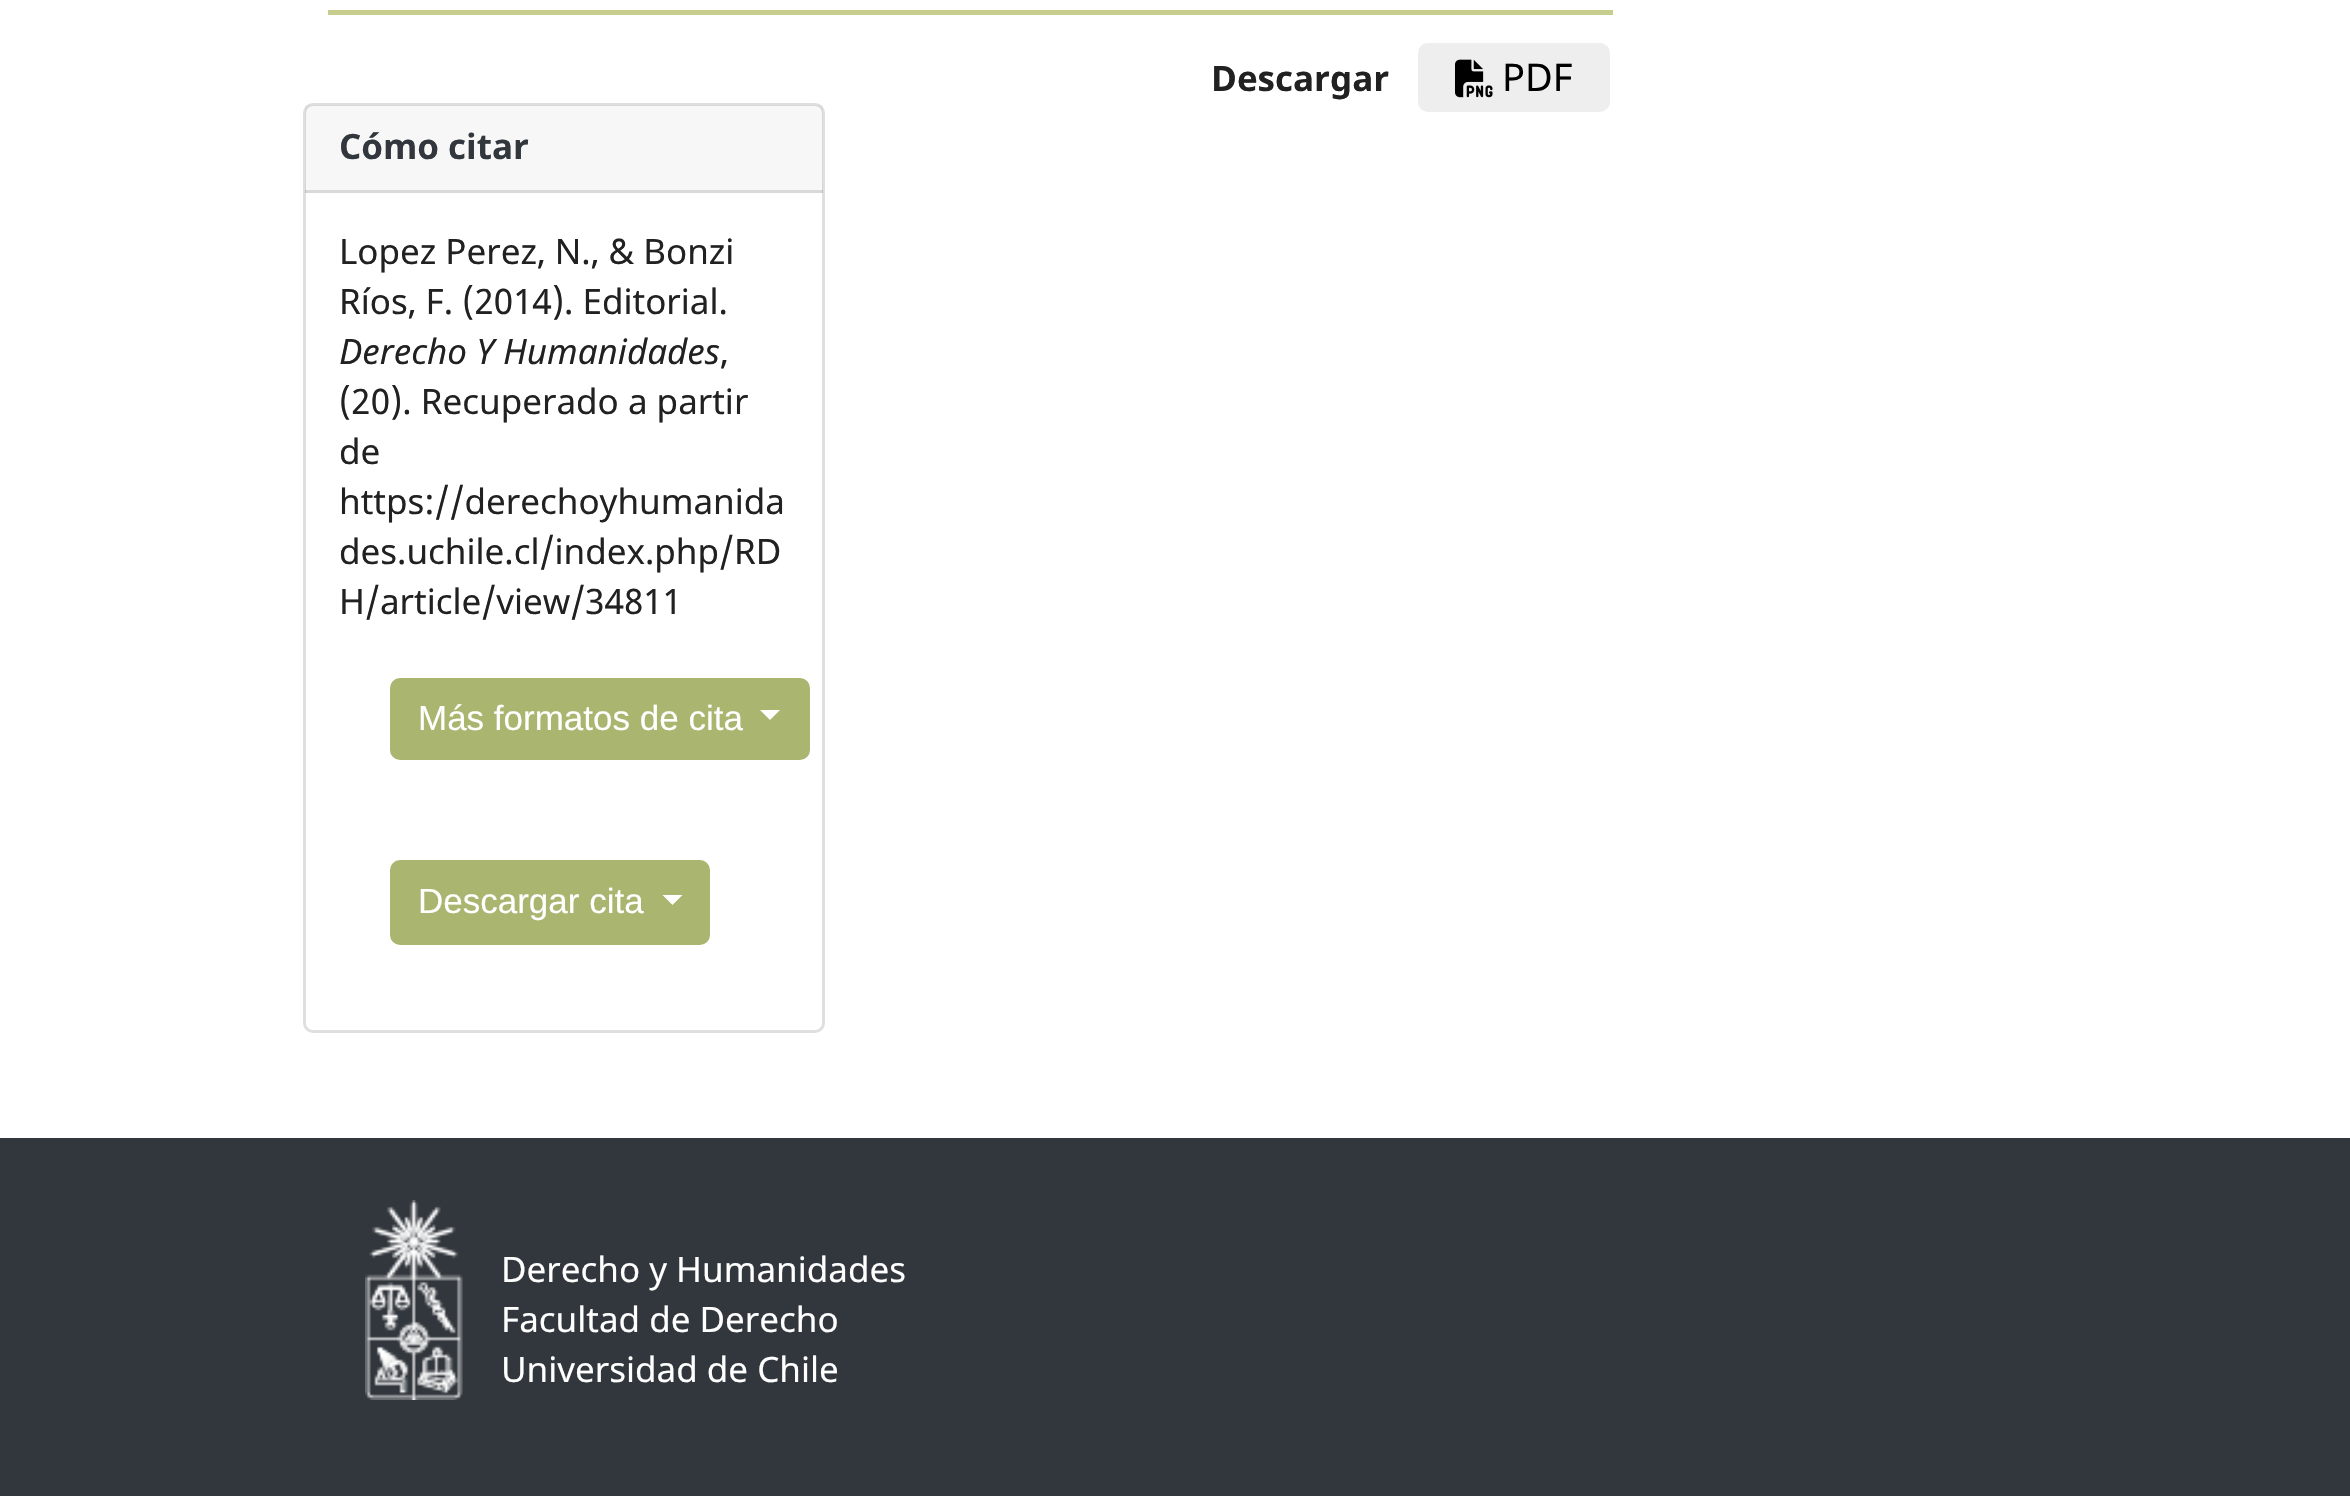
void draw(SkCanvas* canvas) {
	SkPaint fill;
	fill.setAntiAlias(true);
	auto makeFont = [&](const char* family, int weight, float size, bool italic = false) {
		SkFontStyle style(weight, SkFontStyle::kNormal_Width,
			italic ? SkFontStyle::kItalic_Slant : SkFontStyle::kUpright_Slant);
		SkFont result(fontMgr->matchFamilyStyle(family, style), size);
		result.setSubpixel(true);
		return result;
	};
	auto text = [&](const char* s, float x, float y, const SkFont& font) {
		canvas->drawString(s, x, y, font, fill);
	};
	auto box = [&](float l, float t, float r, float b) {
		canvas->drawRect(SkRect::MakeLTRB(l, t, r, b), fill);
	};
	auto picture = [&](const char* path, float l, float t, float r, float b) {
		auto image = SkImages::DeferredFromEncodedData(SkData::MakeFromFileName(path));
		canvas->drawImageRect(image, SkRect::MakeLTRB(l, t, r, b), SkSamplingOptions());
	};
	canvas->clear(0xFFFFFFFF);
	fill.setColor(0xFFC7CE8D);
	box(328, 10, 1613, 15);
	fill.setColor(0xFFEEEEEE);
	canvas->drawRoundRect(SkRect::MakeLTRB(1416.5f, 41.5f, 1611.5f, 113.5f), 11.5f, 11.5f, fill);
	fill.setStyle(SkPaint::kStroke_Style);
	fill.setStrokeWidth(3);
	fill.setColor(0xFFFFFFFF);
	canvas->drawRoundRect(SkRect::MakeLTRB(1416.5f, 41.5f, 1611.5f, 113.5f), 11.5f, 11.5f, fill);
	picture("image0.png", 1455, 59, 1493, 98);
	fill.setColor(0xFFDFDFDF);
	canvas->drawRoundRect(SkRect::MakeLTRB(304.5f, 104.5f, 823.5f, 1031.5f), 8.5f, 8.5f, fill);
	fill.setStyle(SkPaint::kFill_Style);
	fill.setColor(0x08000000);
	box(305, 105, 823, 193);
	fill.setColor(0x1F000000);
	box(305, 190, 823, 193);
	fill.setColor(0xFFAAB570);
	canvas->drawRoundRect(SkRect::MakeLTRB(391.5f, 679.5f, 808.5f, 758.5f), 8.5f, 8.5f, fill);
	fill.setStyle(SkPaint::kStroke_Style);
	canvas->drawRoundRect(SkRect::MakeLTRB(391.5f, 679.5f, 808.5f, 758.5f), 8.5f, 8.5f, fill);
	fill.setStyle(SkPaint::kFill_Style);
	fill.setColor(0xFFFFFFFF);
	canvas->drawPath(SkPathBuilder().moveTo(760, 710).lineTo(780, 710).lineTo(770, 720).close().detach(), fill);
	fill.setColor(0xFFAAB570);
	canvas->drawRoundRect(SkRect::MakeLTRB(391.5f, 861.5f, 708.5f, 943.5f), 8.5f, 8.5f, fill);
	fill.setStyle(SkPaint::kStroke_Style);
	canvas->drawRoundRect(SkRect::MakeLTRB(391.5f, 861.5f, 708.5f, 943.5f), 8.5f, 8.5f, fill);
	fill.setStyle(SkPaint::kFill_Style);
	fill.setColor(0xFFFFFFFF);
	canvas->drawPath(SkPathBuilder().moveTo(662.5f, 895).lineTo(682.5f, 895).lineTo(672.5f, 905).close().detach(), fill);
	fill.setColor(0xFF32373D);
	box(0, 1138, 2350, 1496);
	picture("image1.png", 365, 1200, 463, 1400);
	auto font1 = makeFont("Noto Sans", 700, 35);
	fill.setColor(0xFF212121);
	text("Descargar", 1211, 91, font1);
	auto font2 = makeFont("Noto Sans", 400, 38);
	fill.setColor(0xFF000000);
	text("PDF", 1502, 91, font2);
	fill.setColor(0xFF32373D);
	text("Cómo citar", 339, 159, font1);
	auto font3 = makeFont("Noto Sans", 400, 35);
	fill.setColor(0xFF212121);
	text("Lopez Perez, N., & Bonzi", 339, 264, font3);
	text("Ríos, F. (2014). Editorial.", 339, 314, font3);
	auto font4 = makeFont("Noto Sans", 400, 35, true);
	text("Derecho Y Humanidades", 339, 364, font4);
	text(",", 720, 364, font3);
	text("(20). Recuperado a partir", 339, 414, font3);
	text("de", 339, 464, font3);
	text("https://derechoyhumanida", 339, 514, font3);
	text("des.uchile.cl/index.php/RD", 339, 564, font3);
	text("H/article/view/34811", 339, 614, font3);
	auto font5 = makeFont("Liberation Sans", 400, 35);
	fill.setColor(0xFFFFFFFF);
	text("Más formatos de cita", 418, 730, font5);
	text("Descargar cita", 418, 913, font5);
	text("Derecho y Humanidades", 501, 1282, font3);
	text("Facultad de Derecho", 501, 1332, font3);
	text("Universidad de Chile", 501, 1382, font3);
}
